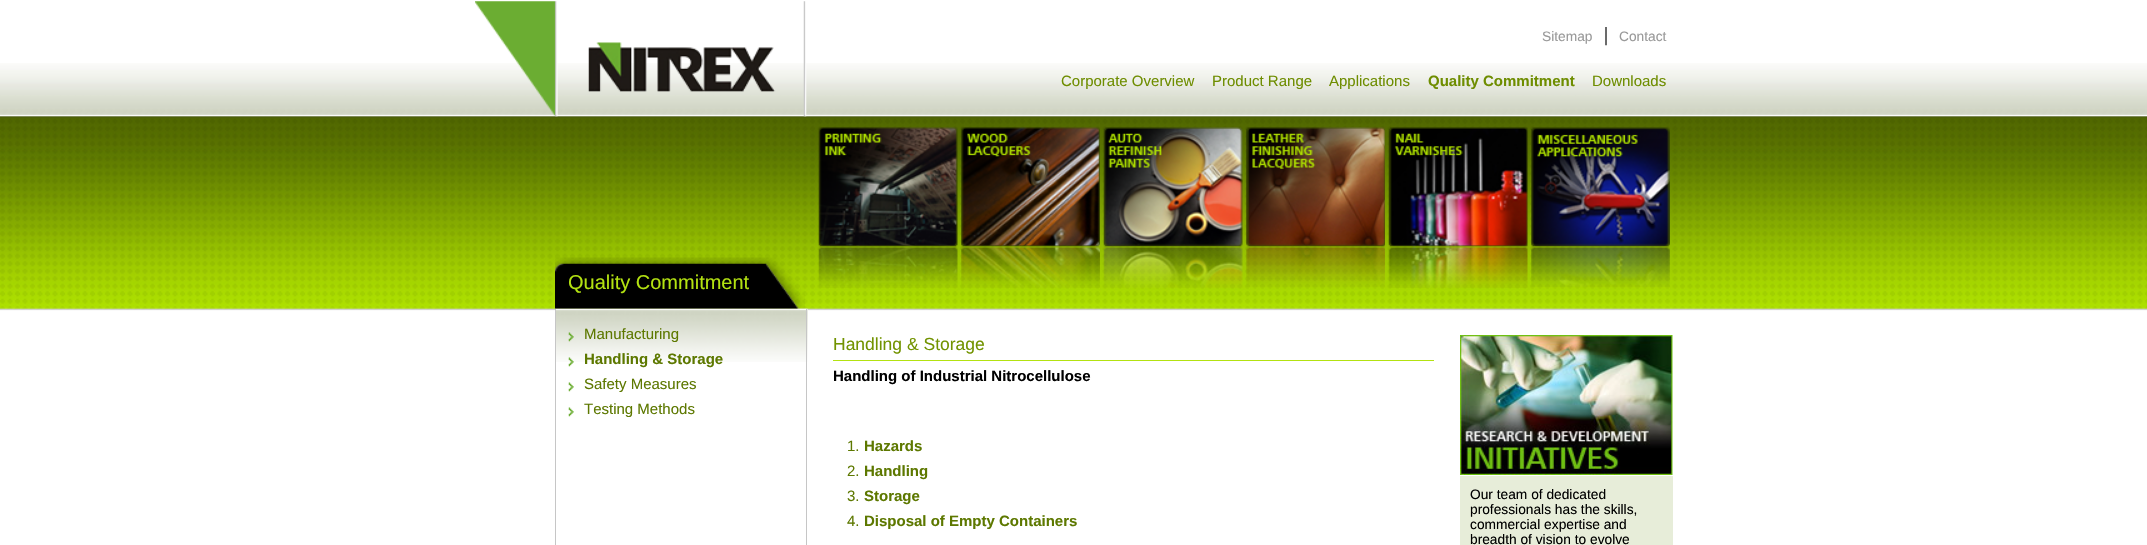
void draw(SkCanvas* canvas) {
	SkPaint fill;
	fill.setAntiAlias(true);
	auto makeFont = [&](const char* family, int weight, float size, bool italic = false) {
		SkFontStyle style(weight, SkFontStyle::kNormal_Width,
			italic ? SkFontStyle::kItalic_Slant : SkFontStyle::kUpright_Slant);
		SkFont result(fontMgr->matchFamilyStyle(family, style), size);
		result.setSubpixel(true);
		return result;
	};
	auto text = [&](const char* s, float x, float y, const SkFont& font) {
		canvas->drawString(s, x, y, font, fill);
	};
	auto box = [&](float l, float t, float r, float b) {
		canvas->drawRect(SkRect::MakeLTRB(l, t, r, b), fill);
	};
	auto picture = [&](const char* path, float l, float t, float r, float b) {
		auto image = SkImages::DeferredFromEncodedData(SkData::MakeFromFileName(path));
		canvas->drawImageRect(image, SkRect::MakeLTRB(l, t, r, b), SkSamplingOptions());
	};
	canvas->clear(0xFFFFFFFF);
	picture("image0.png", 0, 63, 2147, 311);
	picture("image1.png", 475, 1, 807, 117);
	picture("image2.png", 555, 257, 805, 309);
	picture("image3.png", 818, 127, 958, 288);
	picture("image4.png", 961, 127, 1100, 288);
	picture("image5.png", 1103, 127, 1243, 288);
	picture("image6.png", 1246, 127, 1385, 287);
	picture("image7.png", 1388, 127, 1528, 288);
	picture("image8.png", 1531, 127, 1670, 287);
	picture("image9.png", 555, 308, 808, 362);
	fill.setColor(0xFFC6C6C6);
	box(806, 309, 807, 545);
	box(555, 309, 556, 545);
	picture("image10.png", 568, 332, 574, 342);
	picture("image11.png", 568, 357, 574, 367);
	picture("image12.png", 568, 382, 574, 392);
	picture("image12.png", 568, 407, 574, 417);
	fill.setColor(0xFFB3E211);
	box(833, 360, 1434, 361);
	picture("image13.png", 1460, 335, 1673, 475);
	fill.setColor(0xFFE7EDD9);
	box(1460, 476, 1673, 545);
	auto font1 = makeFont("Liberation Sans", 400, 13.75f);
	fill.setColor(0xFF999999);
	text("Sitemap", 1542, 41, font1);
	auto font2 = makeFont("Liberation Serif", 400, 20);
	fill.setColor(0xFF000000);
	text("|", 1604, 41, font2);
	fill.setColor(0xFF999999);
	text("Contact", 1619, 41, font1);
	auto font3 = makeFont("Liberation Sans", 400, 15);
	fill.setColor(0xFF6E8D00);
	text("Corporate Overview", 1061, 86, font3);
	text("Product Range", 1212, 86, font3);
	text("Applications", 1329, 86, font3);
	auto font4 = makeFont("Liberation Sans", 700, 15);
	text("Quality Commitment", 1428, 86, font4);
	text("Downloads", 1592, 86, font3);
	auto font5 = makeFont("Liberation Sans", 400, 20);
	fill.setColor(0xFFB3E211);
	text("Quality Commitment", 568, 289, font5);
	fill.setColor(0xFF5D7800);
	text("Manufacturing", 584, 339, font3);
	text("Handling & Storage", 584, 364, font4);
	text("Safety Measures", 584, 389, font3);
	text("Testing Methods", 584, 414, font3);
	auto font6 = makeFont("Liberation Sans", 400, 17.5f);
	fill.setColor(0xFF729300);
	text("Handling & Storage", 833, 350, font6);
	fill.setColor(0xFF000000);
	text("Handling of Industrial Nitrocellulose", 833, 381, font4);
	fill.setColor(0xFF5D7800);
	text("1.", 847, 451, font3);
	text("Hazards", 864, 451, font4);
	text("2.", 847, 476, font3);
	text("Handling", 864, 476, font4);
	text("3.", 847, 501, font3);
	text("Storage", 864, 501, font4);
	text("4.", 847, 526, font3);
	text("Disposal of Empty Containers", 864, 526, font4);
	fill.setColor(0xFF000000);
	text("Our team of dedicated", 1470, 499, font1);
	text("professionals has the skills,", 1470, 514, font1);
	text("commercial expertise and", 1470, 529, font1);
	text("breadth of vision to evolve", 1470, 544, font1);
}
